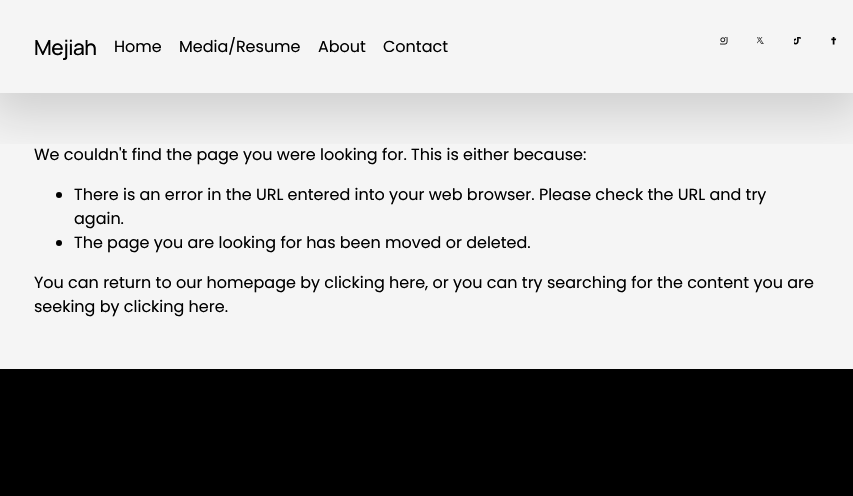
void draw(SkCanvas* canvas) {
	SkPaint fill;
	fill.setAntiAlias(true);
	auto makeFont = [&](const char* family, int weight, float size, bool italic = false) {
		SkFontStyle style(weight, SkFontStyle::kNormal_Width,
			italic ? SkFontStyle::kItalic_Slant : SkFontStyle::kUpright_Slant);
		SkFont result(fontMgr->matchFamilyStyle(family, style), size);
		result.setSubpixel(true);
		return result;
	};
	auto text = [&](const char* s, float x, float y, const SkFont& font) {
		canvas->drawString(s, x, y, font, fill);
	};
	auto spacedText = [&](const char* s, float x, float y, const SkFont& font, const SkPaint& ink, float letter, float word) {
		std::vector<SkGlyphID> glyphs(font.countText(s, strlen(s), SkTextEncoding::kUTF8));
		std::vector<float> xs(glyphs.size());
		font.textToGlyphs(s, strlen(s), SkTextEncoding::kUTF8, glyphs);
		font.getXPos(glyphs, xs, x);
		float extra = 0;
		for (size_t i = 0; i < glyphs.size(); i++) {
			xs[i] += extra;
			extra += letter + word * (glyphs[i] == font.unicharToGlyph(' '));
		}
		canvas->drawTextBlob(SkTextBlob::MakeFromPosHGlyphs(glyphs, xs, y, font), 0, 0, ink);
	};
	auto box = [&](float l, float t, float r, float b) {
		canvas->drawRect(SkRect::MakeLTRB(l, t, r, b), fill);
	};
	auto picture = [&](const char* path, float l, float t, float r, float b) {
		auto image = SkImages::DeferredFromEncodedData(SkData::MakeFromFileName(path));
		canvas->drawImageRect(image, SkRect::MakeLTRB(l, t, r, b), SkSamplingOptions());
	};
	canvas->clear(0xFFF5F5F5);
	canvas->save();
	canvas->clipRect(SkRect::MakeLTRB(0, 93, 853, 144));
	fill.setColor(0x26000000);
	fill.setMaskFilter(SkMaskFilter::MakeBlur(kNormal_SkBlurStyle, 24));
	canvas->drawRect(SkRect::MakeLTRB(-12, 0, 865, 117), fill);
	fill.setMaskFilter(nullptr);
	canvas->restore();
	picture("image0.png", 720, 37, 728, 45);
	picture("image1.png", 757, 37, 764, 44);
	picture("image2.png", 794, 37, 801, 45);
	picture("image3.png", 831, 37, 837, 45);
	fill.setColor(0xFF000000);
	canvas->drawCircle(59, 195, 3, fill);
	canvas->drawCircle(59, 243, 3, fill);
	box(0, 369, 853, 496);
	auto font1 = makeFont("Manrope", 500, 21);
	spacedText("Mejiah", 34, 55, font1, fill, -0.5f, 0);
	auto font2 = makeFont("Poppins", 400, 16);
	text("Home", 114, 52, font2);
	text("Media/Resume", 179, 52, font2);
	text("About", 318, 52, font2);
	text("Contact", 383, 52, font2);
	text("We couldn't find the page you were looking for. This is either because:", 34, 160, font2);
	text("There is an error in the URL entered into your web browser. Please check the URL and try", 74, 200, font2);
	text("again.", 74, 224, font2);
	text("The page you are looking for has been moved or deleted.", 74, 248, font2);
	text("You can return to our homepage by clicking here, or you can try searching for the content you are", 34, 288, font2);
	text("seeking by clicking here.", 34, 312, font2);
}
